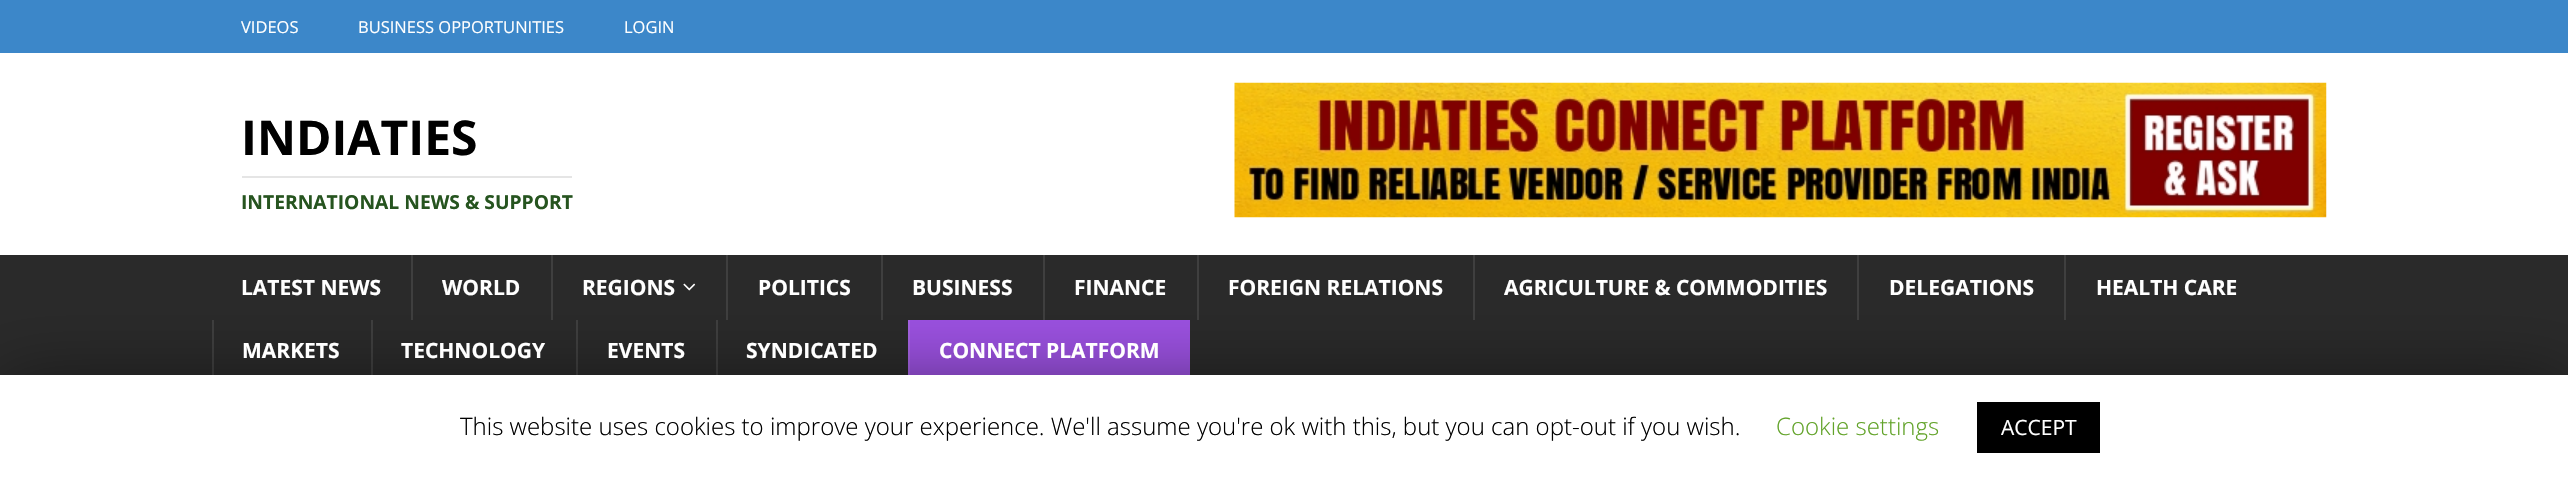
void draw(SkCanvas* canvas) {
	SkPaint fill;
	fill.setAntiAlias(true);
	auto makeFont = [&](const char* family, int weight, float size, bool italic = false) {
		SkFontStyle style(weight, SkFontStyle::kNormal_Width,
			italic ? SkFontStyle::kItalic_Slant : SkFontStyle::kUpright_Slant);
		SkFont result(fontMgr->matchFamilyStyle(family, style), size);
		result.setSubpixel(true);
		return result;
	};
	auto text = [&](const char* s, float x, float y, const SkFont& font) {
		canvas->drawString(s, x, y, font, fill);
	};
	auto box = [&](float l, float t, float r, float b) {
		canvas->drawRect(SkRect::MakeLTRB(l, t, r, b), fill);
	};
	auto picture = [&](const char* path, float l, float t, float r, float b) {
		auto image = SkImages::DeferredFromEncodedData(SkData::MakeFromFileName(path));
		canvas->drawImageRect(image, SkRect::MakeLTRB(l, t, r, b), SkSamplingOptions());
	};
	canvas->clear(0xFF3C87C9);
	fill.setColor(0xFFFFFFFF);
	box(0, 53, 2568, 255);
	fill.setColor(0xFFE5E5E5);
	box(242, 176, 572, 178);
	picture("image0.png", 1234, 82, 2327, 218);
	fill.setColor(0xFF2A2A2A);
	box(0, 255, 2568, 375);
	fill.setColor(0xFF3F3F3F);
	box(411, 255, 413, 320);
	box(551, 255, 553, 320);
	picture("image1.png", 683, 283, 696, 291);
	box(726, 255, 728, 320);
	box(881, 255, 883, 320);
	box(1043, 255, 1045, 320);
	box(1197, 255, 1199, 320);
	box(1473, 255, 1475, 320);
	box(1857, 255, 1859, 320);
	box(2064, 255, 2066, 320);
	box(212, 320, 214, 383);
	box(371, 320, 373, 383);
	box(576, 320, 578, 383);
	box(716, 320, 718, 383);
	fill.setColor(0xFF9B51E0);
	box(910, 320, 1190, 375);
	fill.setColor(0xFFA562E3);
	box(908, 320, 910, 383);
	fill.setColor(0x80000000);
	fill.setMaskFilter(SkMaskFilter::MakeBlur(kNormal_SkBlurStyle, 37.5f));
	canvas->drawRect(SkRect::MakeLTRB(0, 383, 2568, 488), fill);
	fill.setMaskFilter(nullptr);
	fill.setColor(0xFFFFFFFF);
	box(0, 375, 2568, 480);
	fill.setColor(0xFF000000);
	box(1977, 402, 2100, 453);
	auto font1 = makeFont("Open Sans", 400, 16.5f);
	fill.setColor(0xFFFFFFFF);
	text("VIDEOS", 241, 33, font1);
	text("BUSINESS OPPORTUNITIES", 358, 33, font1);
	text("LOGIN", 624, 33, font1);
	auto font2 = makeFont("Open Sans", 700, 48);
	fill.setColor(0xFF000000);
	text("INDIATIES", 241, 155, font2);
	auto font3 = makeFont("Open Sans", 700, 19.25f);
	fill.setColor(0xFF26541F);
	text("INTERNATIONAL NEWS & SUPPORT", 241, 209, font3);
	auto font4 = makeFont("Open Sans", 700, 21);
	fill.setColor(0xFFFFFFFF);
	text("LATEST NEWS", 241, 295, font4);
	text("WORLD", 442, 295, font4);
	text("REGIONS", 582, 295, font4);
	text("POLITICS", 758, 295, font4);
	text("BUSINESS", 912, 295, font4);
	text("FINANCE", 1074, 295, font4);
	text("FOREIGN RELATIONS", 1228, 295, font4);
	text("AGRICULTURE & COMMODITIES", 1504, 295, font4);
	text("DELEGATIONS", 1889, 295, font4);
	text("HEALTH CARE", 2096, 295, font4);
	text("MARKETS", 242, 358, font4);
	text("TECHNOLOGY", 401, 358, font4);
	text("EVENTS", 607, 358, font4);
	text("SYNDICATED", 746, 358, font4);
	text("CONNECT PLATFORM", 939, 358, font4);
	auto font5 = makeFont("Open Sans", 300, 24);
	fill.setColor(0xFF000000);
	text("This website uses cookies to improve your experience. We'll assume you're ok with this, but you can opt-out if you wish.", 460, 435, font5);
	fill.setColor(0xFF62A329);
	text("Cookie settings", 1776, 435, font5);
	auto font6 = makeFont("Open Sans", 400, 21);
	fill.setColor(0xFFFFFFFF);
	text("ACCEPT", 2001, 435, font6);
}
